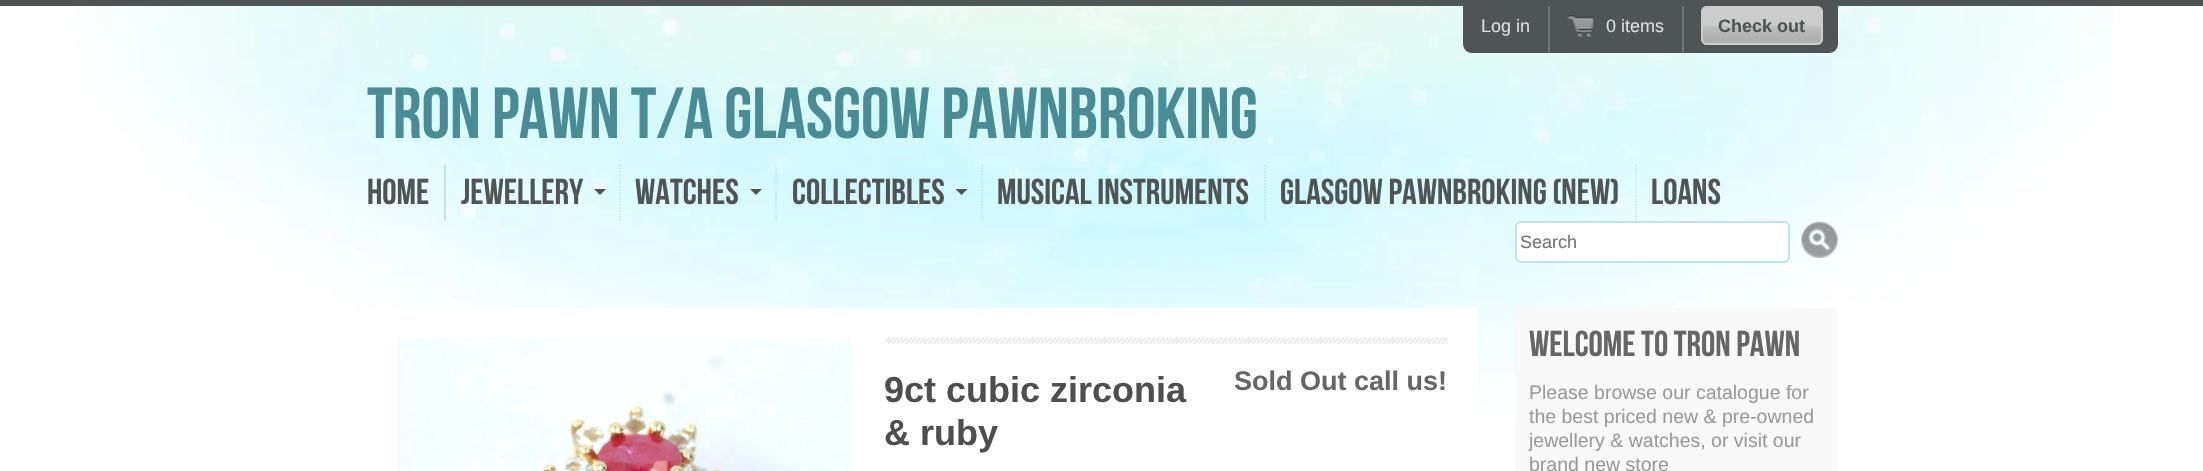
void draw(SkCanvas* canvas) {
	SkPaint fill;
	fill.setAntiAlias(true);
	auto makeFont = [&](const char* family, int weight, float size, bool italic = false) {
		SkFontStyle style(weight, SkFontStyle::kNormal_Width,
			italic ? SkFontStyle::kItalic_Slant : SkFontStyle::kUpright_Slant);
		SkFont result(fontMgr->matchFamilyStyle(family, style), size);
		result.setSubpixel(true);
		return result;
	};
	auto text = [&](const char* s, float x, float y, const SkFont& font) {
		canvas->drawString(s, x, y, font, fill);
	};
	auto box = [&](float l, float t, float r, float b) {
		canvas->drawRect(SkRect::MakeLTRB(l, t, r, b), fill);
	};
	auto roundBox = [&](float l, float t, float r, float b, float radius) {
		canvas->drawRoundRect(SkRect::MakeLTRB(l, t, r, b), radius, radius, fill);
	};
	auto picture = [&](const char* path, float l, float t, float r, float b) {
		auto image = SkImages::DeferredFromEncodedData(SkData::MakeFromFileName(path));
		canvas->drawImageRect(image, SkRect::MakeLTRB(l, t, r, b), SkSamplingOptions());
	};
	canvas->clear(0xFFFFFFFF);
	picture("image0.png", 76, 6, 2114, 439);
	fill.setColor(0xFF4F5555);
	box(0, 0, 2203, 6);
	canvas->drawPath(SkPathBuilder().moveTo(1463, 6).lineTo(1838, 6).lineTo(1838, 44).cubicTo(1838, 49, 1834, 53, 1829, 53).lineTo(1472, 53).cubicTo(1467, 53, 1463, 49, 1463, 44).close().detach(), fill);
	fill.setColor(0xFF6B7676);
	box(1548, 6, 1550, 53);
	box(1682, 6, 1684, 53);
	picture("image1.png", 1567, 15, 1594, 37);
	fill.setColor(0xFFCCCCCC);
	roundBox(1701, 6, 1823, 45, 6);
	picture("image2.png", 1701, 25, 1823, 44);
	fill.setStyle(SkPaint::kStroke_Style);
	fill.setStrokeWidth(2);
	canvas->drawRoundRect(SkRect::MakeLTRB(1702, 7, 1822, 44), 5, 5, fill);
	fill.setStyle(SkPaint::kFill_Style);
	fill.setColor(0xFFBDE4EA);
	box(444, 165, 446, 221);
	fill.setStyle(SkPaint::kStroke_Style);
	fill.setStrokeWidth(1.5f);
	fill.setPathEffect(SkDashPathEffect::Make({{1.5f, 1.5f}}, 0));
	canvas->drawPath(SkPathBuilder().moveTo(620, 165).lineTo(620, 220.5f).detach(), fill);
	fill.setPathEffect(nullptr);
	fill.setStyle(SkPaint::kFill_Style);
	fill.setColor(0xFF4F5555);
	canvas->drawPath(SkPathBuilder().moveTo(594, 189).lineTo(606, 189).lineTo(600, 195).close().detach(), fill);
	fill.setStyle(SkPaint::kStroke_Style);
	fill.setColor(0xFFBDE4EA);
	fill.setPathEffect(SkDashPathEffect::Make({{1.5f, 1.5f}}, 0));
	canvas->drawPath(SkPathBuilder().moveTo(776, 165).lineTo(776, 220.5f).detach(), fill);
	fill.setPathEffect(nullptr);
	fill.setStyle(SkPaint::kFill_Style);
	fill.setColor(0xFF4F5555);
	canvas->drawPath(SkPathBuilder().moveTo(750, 189).lineTo(762, 189).lineTo(756, 195).close().detach(), fill);
	fill.setStyle(SkPaint::kStroke_Style);
	fill.setColor(0xFFBDE4EA);
	fill.setPathEffect(SkDashPathEffect::Make({{1.5f, 1.5f}}, 0));
	canvas->drawPath(SkPathBuilder().moveTo(982, 165).lineTo(982, 220.5f).detach(), fill);
	fill.setPathEffect(nullptr);
	fill.setStyle(SkPaint::kFill_Style);
	fill.setColor(0xFF4F5555);
	canvas->drawPath(SkPathBuilder().moveTo(955.5f, 189).lineTo(967.5f, 189).lineTo(961.5f, 195).close().detach(), fill);
	fill.setStyle(SkPaint::kStroke_Style);
	fill.setColor(0xFFBDE4EA);
	fill.setPathEffect(SkDashPathEffect::Make({{1.5f, 1.5f}}, 0));
	canvas->drawPath(SkPathBuilder().moveTo(1265, 165).lineTo(1265, 220.5f).detach(), fill);
	fill.setPathEffect(nullptr);
	fill.setPathEffect(SkDashPathEffect::Make({{1.5f, 1.5f}}, 0));
	canvas->drawPath(SkPathBuilder().moveTo(1636, 165).lineTo(1636, 220.5f).detach(), fill);
	fill.setPathEffect(nullptr);
	fill.setStyle(SkPaint::kFill_Style);
	fill.setColor(0xFFFFFFFF);
	canvas->drawRoundRect(SkRect::MakeLTRB(1516, 222, 1789, 262), 5, 5, fill);
	fill.setStyle(SkPaint::kStroke_Style);
	fill.setStrokeWidth(2);
	fill.setColor(0xFFBDE4EA);
	canvas->drawRoundRect(SkRect::MakeLTRB(1516, 222, 1789, 262), 5, 5, fill);
	picture("image3.png", 1801, 221, 1838, 258);
	fill.setStyle(SkPaint::kFill_Style);
	fill.setColor(0xFFFFFFFF);
	canvas->drawPath(SkPathBuilder().moveTo(374, 308).lineTo(1472, 308).cubicTo(1475.5f, 308, 1478, 310.5f, 1478, 314).lineTo(1478, 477).lineTo(368, 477).lineTo(368, 314).cubicTo(368, 310.5f, 370.5f, 308, 374, 308).close().detach(), fill);
	picture("image4.png", 397, 338, 852, 471);
	picture("image5.png", 885, 337, 1448, 344);
	fill.setColor(0xFFF9F9F9);
	roundBox(1515, 308, 1838, 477, 6);
	auto font1 = makeFont("Liberation Sans", 400, 18);
	fill.setColor(0xFFDDDDDD);
	text("Log in", 1481, 32, font1);
	text("0 items", 1606, 32, font1);
	auto font2 = makeFont("Liberation Sans", 700, 18);
	fill.setColor(0xFF4F5555);
	text("Check out", 1718, 32, font2);
	auto font3 = makeFont("Bebas Neue", 400, 72);
	fill.setColor(0xFF498C95);
	text("Tron Pawn t/a Glasgow Pawnbroking", 367, 138, font3);
	auto font4 = makeFont("Bebas Neue", 400, 36);
	fill.setColor(0xFF4F5555);
	text("Home", 367, 204, font4);
	text("Jewellery", 461, 204, font4);
	text("Watches", 635, 204, font4);
	text("Collectibles", 792, 204, font4);
	text("Musical Instruments", 997, 204, font4);
	text("Glasgow Pawnbroking (NEW)", 1280, 204, font4);
	text("LOANS", 1651, 204, font4);
	fill.setColor(0xFF757575);
	text("Search", 1520, 248, font1);
	auto font5 = makeFont("Liberation Sans", 700, 36);
	fill.setColor(0xFF4E4E4E);
	text("9ct cubic zirconia", 884, 402, font5);
	text("& ruby", 884, 445, font5);
	auto font6 = makeFont("Liberation Sans", 700, 27);
	fill.setColor(0xFF666666);
	text("Sold Out call us!", 1234, 390, font6);
	text("Welcome to Tron Pawn", 1529, 356, font4);
	auto font7 = makeFont("Liberation Sans", 400, 19.5f);
	fill.setColor(0xFF999999);
	text("Please browse our catalogue for", 1529, 399, font7);
	text("the best priced new & pre-owned", 1529, 423, font7);
	text("jewellery & watches, or visit our", 1529, 447, font7);
	text("brand new store", 1529, 471, font7);
}
